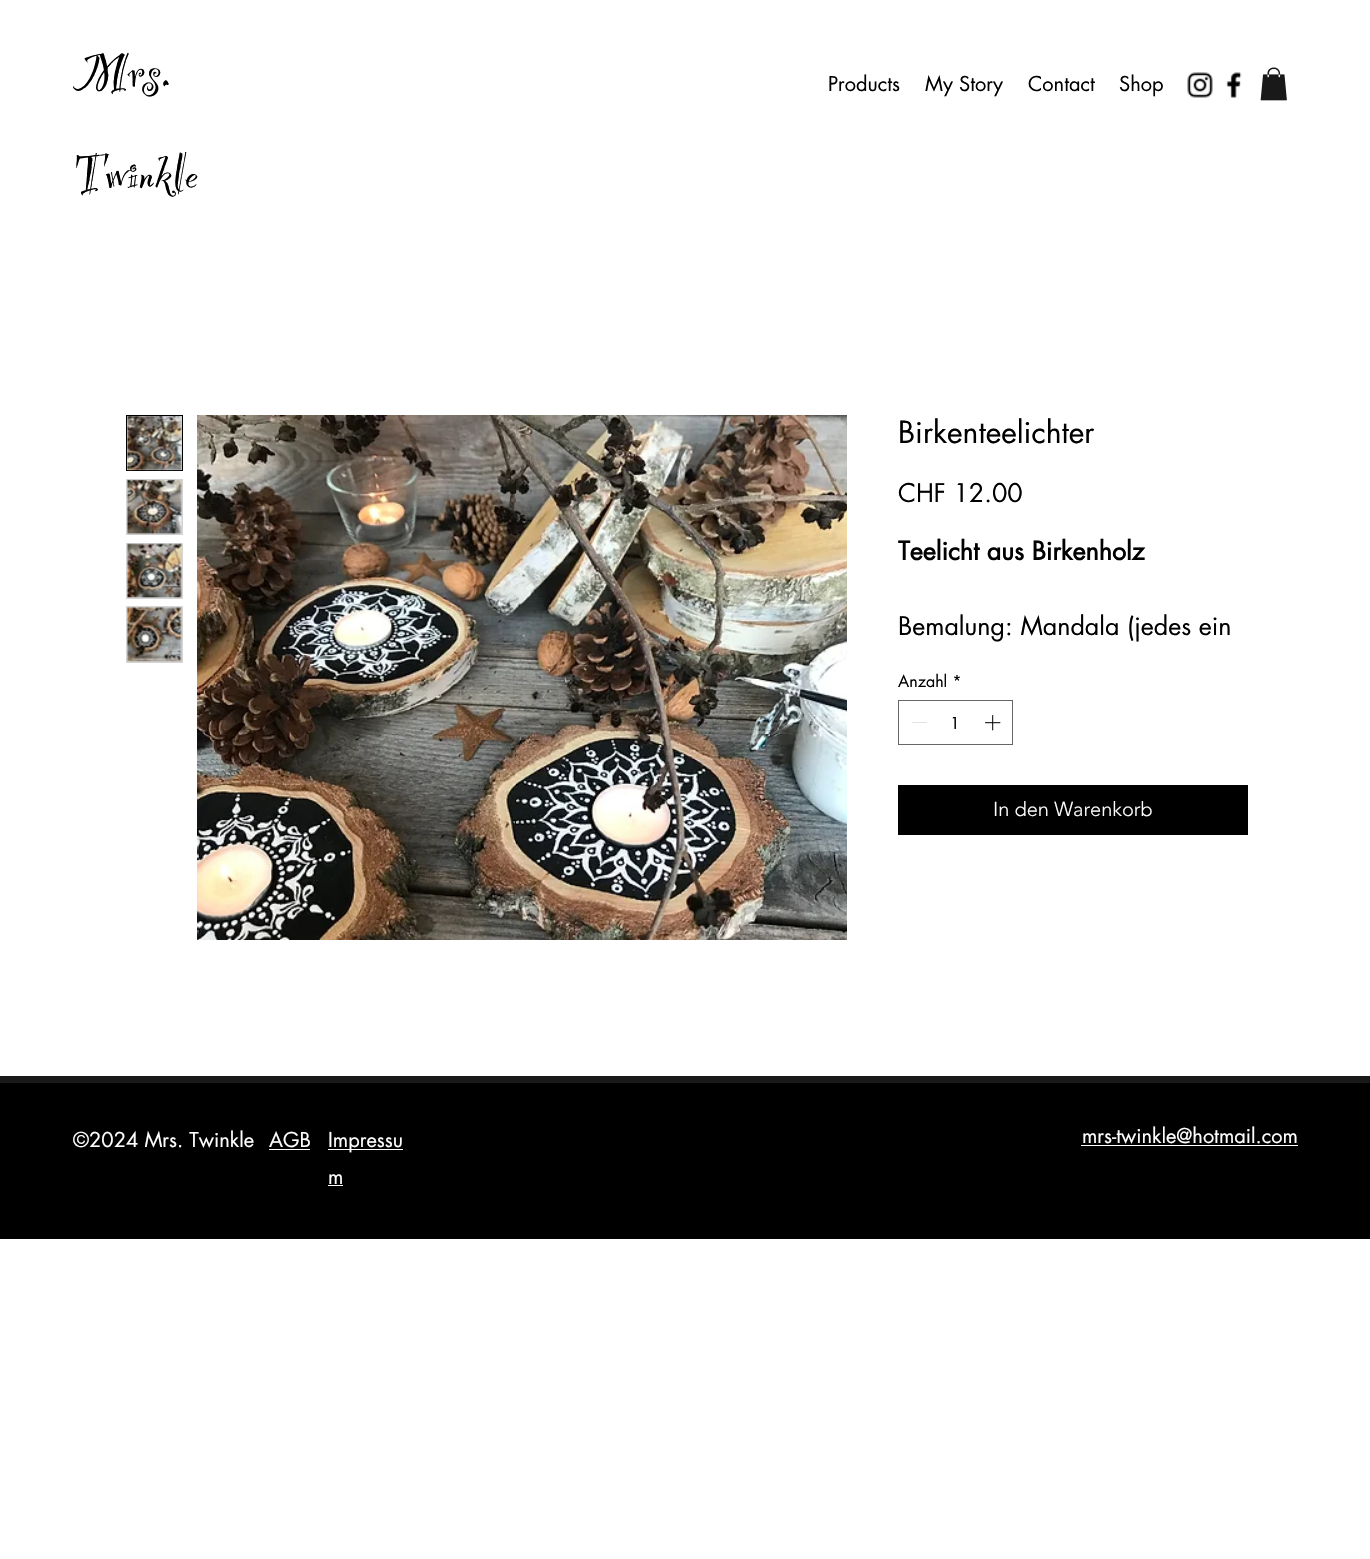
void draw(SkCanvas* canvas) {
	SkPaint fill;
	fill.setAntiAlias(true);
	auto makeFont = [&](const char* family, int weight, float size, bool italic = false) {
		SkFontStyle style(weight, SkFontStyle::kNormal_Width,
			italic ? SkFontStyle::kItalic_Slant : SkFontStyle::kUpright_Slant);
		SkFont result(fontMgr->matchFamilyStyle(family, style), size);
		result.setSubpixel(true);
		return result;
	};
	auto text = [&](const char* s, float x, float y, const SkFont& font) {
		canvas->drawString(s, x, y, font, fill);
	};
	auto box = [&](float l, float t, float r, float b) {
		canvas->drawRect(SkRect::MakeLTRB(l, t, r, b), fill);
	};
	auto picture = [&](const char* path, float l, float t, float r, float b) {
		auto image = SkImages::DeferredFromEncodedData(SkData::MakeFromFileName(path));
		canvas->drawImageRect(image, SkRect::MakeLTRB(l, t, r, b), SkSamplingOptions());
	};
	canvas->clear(0xFFFFFFFF);
	picture("image0.png", 1187, 72, 1213, 98);
	picture("image1.png", 1226, 72, 1242, 98);
	picture("image2.png", 1260, 67, 1287, 101);
	fill.setColor(0xFFD4D4D4);
	canvas->drawRect(SkRect::MakeLTRB(126.5f, 415.5f, 182.5f, 470.5f), fill);
	fill.setStyle(SkPaint::kStroke_Style);
	fill.setStrokeWidth(1);
	fill.setColor(0xFF000000);
	canvas->drawRect(SkRect::MakeLTRB(126.5f, 415.5f, 182.5f, 470.5f), fill);
	picture("image3.png", 127, 416, 182, 471);
	fill.setStyle(SkPaint::kFill_Style);
	fill.setColor(0xFFD4D4D4);
	box(126, 479, 183, 535);
	picture("image4.png", 127, 479, 182, 535);
	box(126, 543, 183, 599);
	picture("image5.png", 127, 543, 182, 598);
	box(126, 606, 183, 663);
	picture("image6.png", 127, 607, 182, 662);
	picture("image7.png", 197, 415, 847, 940);
	fill.setStyle(SkPaint::kStroke_Style);
	fill.setColor(0xFF666666);
	canvas->drawRect(SkRect::MakeLTRB(898.5f, 700.5f, 1012.5f, 744.5f), fill);
	fill.setStyle(SkPaint::kFill_Style);
	fill.setColor(0xFFE3E3E3);
	box(912, 722, 927, 723);
	picture("image8.png", 985, 715, 1001, 731);
	fill.setColor(0xFF000000);
	box(898, 785, 1248, 835);
	box(0, 1083, 1370, 1239);
	fill.setColor(0xFF191919);
	box(0, 1076, 1370, 1083);
	fill.setColor(0xFFFFFFFF);
	box(269, 1149, 310, 1150);
	box(328, 1149, 403, 1150);
	box(328, 1185, 343, 1186);
	box(1081, 1145, 1298, 1146);
	auto font1 = makeFont("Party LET", 100, 60);
	fill.setColor(0xFF000000);
	text("Mrs.", 73, 86, font1);
	text("Twinkle", 73, 187, font1);
	auto font2 = makeFont("futura", 400, 20);
	text("Products", 828, 91, font2);
	text("My Story", 925, 91, font2);
	text("Contact", 1028, 91, font2);
	text("Shop", 1119, 91, font2);
	auto font3 = makeFont("futura", 400, 30);
	text("Birkenteelichter", 898, 443, font3);
	auto font4 = makeFont("futura", 400, 25);
	text("CHF 12.00", 898, 502, font4);
	auto font5 = makeFont("futura", 700, 25);
	text("Teelicht aus Birkenholz", 898, 560, font5);
	text("Bemalung: Mandala (jedes ein", 898, 635, font4);
	auto font6 = makeFont("futura", 400, 16);
	text("Anzahl *", 898, 687, font6);
	text("1", 950, 729, font6);
	auto font7 = makeFont("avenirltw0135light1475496", 300, 20);
	fill.setColor(0xFFFFFFFF);
	text("In den Warenkorb", 993, 816, font7);
	text("©2024 Mrs. Twinkle", 73, 1147, font2);
	text("AGB", 269, 1147, font2);
	text("Impressu", 328, 1147, font2);
	text("m", 328, 1184, font2);
	text("mrs-twinkle@hotmail.com", 1082, 1143, font2);
}
